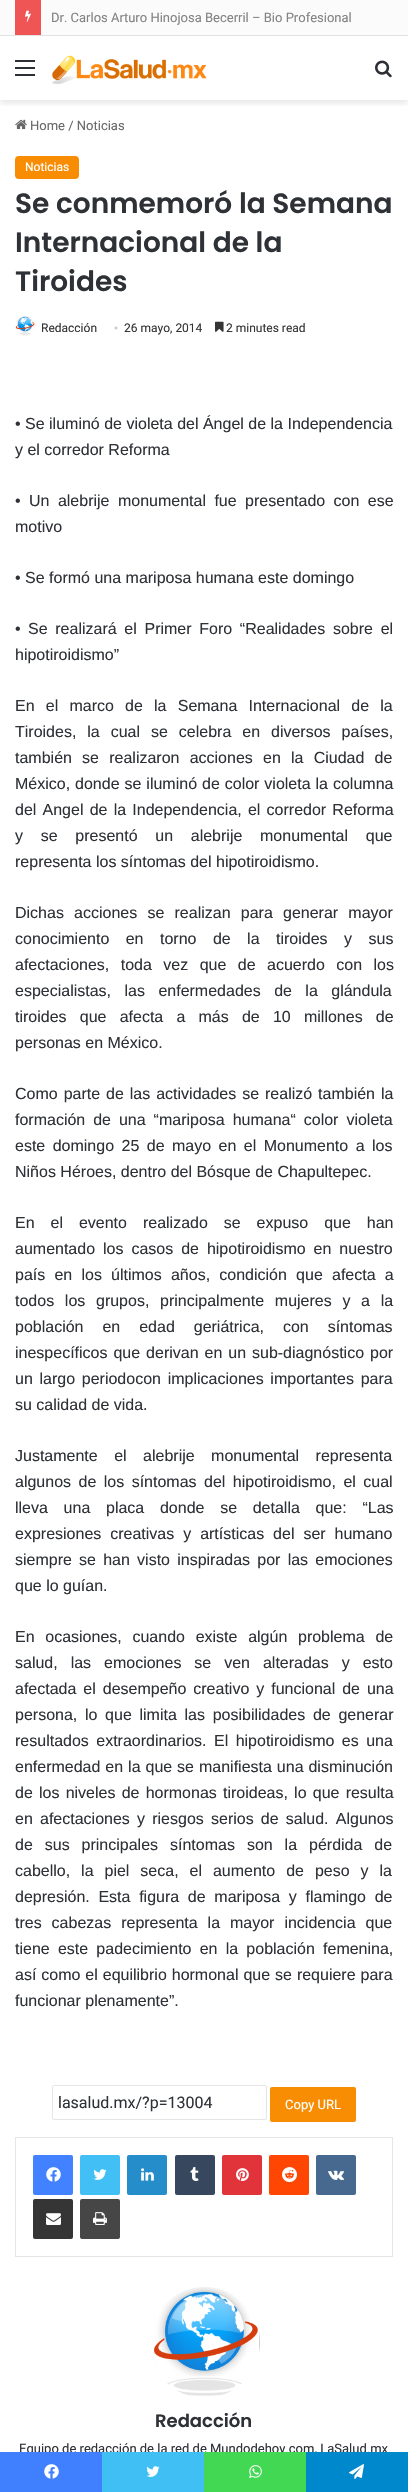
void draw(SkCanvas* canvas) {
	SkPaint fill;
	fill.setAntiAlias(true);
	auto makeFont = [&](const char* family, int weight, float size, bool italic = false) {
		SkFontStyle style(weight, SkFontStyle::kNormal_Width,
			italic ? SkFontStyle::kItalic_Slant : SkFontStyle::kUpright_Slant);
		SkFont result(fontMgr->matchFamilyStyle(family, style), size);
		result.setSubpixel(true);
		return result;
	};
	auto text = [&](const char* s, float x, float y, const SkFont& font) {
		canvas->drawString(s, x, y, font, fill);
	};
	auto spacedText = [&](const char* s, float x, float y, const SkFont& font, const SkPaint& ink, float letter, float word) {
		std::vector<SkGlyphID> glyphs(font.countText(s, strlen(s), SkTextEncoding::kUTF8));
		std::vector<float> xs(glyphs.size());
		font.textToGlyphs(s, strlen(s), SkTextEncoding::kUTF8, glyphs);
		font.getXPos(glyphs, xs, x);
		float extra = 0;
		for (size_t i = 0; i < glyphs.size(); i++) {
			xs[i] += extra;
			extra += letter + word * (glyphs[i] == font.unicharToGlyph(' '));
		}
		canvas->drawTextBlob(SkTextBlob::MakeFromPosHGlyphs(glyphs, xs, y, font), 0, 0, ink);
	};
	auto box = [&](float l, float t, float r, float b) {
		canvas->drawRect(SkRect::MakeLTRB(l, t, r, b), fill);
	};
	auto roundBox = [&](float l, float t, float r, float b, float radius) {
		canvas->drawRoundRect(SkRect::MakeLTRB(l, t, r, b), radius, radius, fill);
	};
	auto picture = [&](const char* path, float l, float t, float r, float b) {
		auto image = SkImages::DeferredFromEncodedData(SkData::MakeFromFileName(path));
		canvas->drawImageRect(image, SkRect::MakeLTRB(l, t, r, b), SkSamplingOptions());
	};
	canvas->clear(0xFFFFFFFF);
	canvas->save();
	canvas->clipRect(SkRect::MakeLTRB(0, 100, 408, 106));
	fill.setColor(0x1A000000);
	fill.setMaskFilter(SkMaskFilter::MakeBlur(kNormal_SkBlurStyle, 3.5f));
	canvas->drawRect(SkRect::MakeLTRB(0, 39, 408, 103), fill);
	fill.setMaskFilter(nullptr);
	canvas->restore();
	fill.setColor(0xFFFBFBFB);
	box(0, 0, 408, 35);
	fill.setColor(0xFFE2E2E2);
	box(0, 35, 408, 36);
	fill.setColor(0xFFF05555);
	box(15, 0, 41, 35);
	picture("image0.png", 25, 10, 31, 22);
	fill.setColor(0xFF2C2F34);
	box(15, 67, 35, 69);
	box(15, 60, 35, 62);
	box(15, 74, 35, 76);
	picture("image1.png", 52, 55, 207, 85);
	picture("image2.png", 375, 60, 392, 78);
	picture("image3.png", 15, 119, 27, 130);
	fill.setColor(0xFFF88D03);
	roundBox(15, 156, 79, 179, 4);
	picture("image4.png", 15, 316, 35, 336);
	picture("image5.png", 215, 321, 224, 332);
	fill.setStyle(SkPaint::kStroke_Style);
	fill.setStrokeWidth(1);
	fill.setColor(0xFFE6E6E6);
	canvas->drawRoundRect(SkRect::MakeLTRB(52.5f, 2085.5f, 266.5f, 2119.5f), 1.5f, 1.5f, fill);
	fill.setStyle(SkPaint::kFill_Style);
	fill.setColor(0xFFF88D03);
	roundBox(270, 2087, 356, 2122, 2);
	fill.setStyle(SkPaint::kStroke_Style);
	fill.setColor(0xFFE6E6E6);
	canvas->drawRect(SkRect::MakeLTRB(15.5f, 2137.5f, 392.5f, 2256.5f), fill);
	fill.setStyle(SkPaint::kFill_Style);
	fill.setColor(0xFF4281FF);
	roundBox(33, 2155, 73, 2195, 2);
	picture("image6.png", 46, 2167, 61, 2182);
	fill.setColor(0xFF42C0F5);
	roundBox(80, 2155, 120, 2195, 2);
	picture("image7.png", 93, 2169, 107, 2180);
	fill.setColor(0xFF258DC9);
	roundBox(127, 2155, 167, 2195, 2);
	picture("image8.png", 141, 2168, 154, 2181);
	fill.setColor(0xFF37485E);
	roundBox(175, 2155, 215, 2195, 2);
	picture("image9.png", 190, 2167, 199, 2181);
	fill.setColor(0xFFE1333A);
	roundBox(222, 2155, 262, 2195, 2);
	picture("image10.png", 236, 2168, 249, 2181);
	fill.setColor(0xFFFF4703);
	roundBox(269, 2155, 309, 2195, 2);
	picture("image11.png", 282, 2167, 297, 2183);
	fill.setColor(0xFF47688F);
	roundBox(316, 2155, 356, 2195, 2);
	picture("image12.png", 328, 2170, 344, 2180);
	fill.setColor(0xFF353535);
	roundBox(33, 2199, 73, 2239, 2);
	picture("image13.png", 46, 2213, 61, 2225);
	fill.setColor(0xFF464646);
	roundBox(80, 2199, 120, 2239, 2);
	picture("image14.png", 93, 2212, 107, 2225);
	picture("image15.png", 154, 2287, 260, 2396);
	auto font1 = makeFont("Roboto", 400, 13);
	fill.setColor(0xFF838383);
	text("Dr. Carlos Arturo Hinojosa Becerril – Bio Profesional", 51, 22, font1);
	fill.setColor(0xFF686868);
	text("Home / Noticias", 30, 130, font1);
	auto font2 = makeFont("Roboto", 400, 12);
	fill.setColor(0xFFFFFFFF);
	text("Noticias", 25, 171, font2);
	auto font3 = makeFont("Poppins", 600, 28);
	fill.setColor(0xFF2E3136);
	text("Se conmemoró la Semana", 15, 213, font3);
	text("Internacional de la", 15, 252, font3);
	text("Tiroides", 15, 291, font3);
	fill.setColor(0xFF353535);
	text("Redacción", 41, 332, font2);
	auto font4 = makeFont("Liberation Serif", 400, 12);
	fill.setColor(0xFFCDCDCD);
	text("•", 114, 332, font4);
	fill.setColor(0xFF353535);
	text("26 mayo, 2014", 124, 332, font2);
	text("2 minutes read", 226, 332, font2);
	auto font5 = makeFont("Liberation Sans", 400, 16);
	fill.setColor(0xFF2E3136);
	text("• Se iluminó de violeta del Ángel de la Independencia", 15, 429, font5);
	text("y el corredor Reforma", 15, 455, font5);
	text("•", 15, 506, font5);
	spacedText("Un alebrije monumental fue presentado con ese", 29, 506, font5, fill, 0, 4);
	text("motivo", 15, 532, font5);
	text("• Se formó una mariposa humana este domingo", 15, 583, font5);
	text("•", 15, 634, font5);
	spacedText("Se realizará el Primer Foro “Realidades sobre el", 28, 634, font5, fill, 0, 3.25f);
	text("hipotiroidismo”", 15, 660, font5);
	spacedText("En el marco de la Semana Internacional de la", 15, 711, font5, fill, 0, 6.75f);
	spacedText("Tiroides, la cual se celebra en diversos países,", 15, 737, font5, fill, 0, 6.5f);
	spacedText("también se realizaron acciones en la Ciudad de", 15, 763, font5, fill, 0, 5.75f);
	spacedText("México, donde se iluminó de color violeta la columna", 15, 789, font5, fill, 0, 0.5f);
	spacedText("del Angel de la Independencia, el corredor Reforma", 15, 815, font5, fill, 0, 1.75f);
	spacedText("y se presentó un alebrije monumental que", 15, 841, font5, fill, 0, 13.25f);
	text("representa los síntomas del hipotiroidismo.", 15, 867, font5);
	spacedText("Dichas acciones se realizan para generar mayor", 15, 918, font5, fill, 0, 5.75f);
	spacedText("conocimiento en torno de la tiroides y sus", 15, 944, font5, fill, 0, 12);
	spacedText("afectaciones, toda vez que de acuerdo con los", 15, 970, font5, fill, 0, 7);
	spacedText("especialistas, las enfermedades de la glándula", 15, 996, font5, fill, 0, 9);
	spacedText("tiroides que afecta a más de 10 millones de", 15, 1022, font5, fill, 0, 8.75f);
	text("personas en México.", 15, 1048, font5);
	spacedText("Como parte de las actividades se realizó también la", 15, 1099, font5, fill, 0, 1.5f);
	spacedText("formación de una “mariposa humana“ color violeta", 15, 1125, font5, fill, 0, 3.5f);
	spacedText("este domingo 25 de mayo en el Monumento a los", 15, 1151, font5, fill, 0, 3);
	text("Niños Héroes, dentro del Bósque de Chapultepec.", 15, 1177, font5);
	spacedText("En el evento realizado se expuso que han", 15, 1228, font5, fill, 0, 11.5f);
	spacedText("aumentado los casos de hipotiroidismo en nuestro", 15, 1254, font5, fill, 0, 3.5f);
	spacedText("país en los últimos años, condición que afecta a", 15, 1280, font5, fill, 0, 4.75f);
	spacedText("todos los grupos, principalmente mujeres y a la", 15, 1306, font5, fill, 0, 6.25f);
	spacedText("población en edad geriátrica, con síntomas", 15, 1332, font5, fill, 0, 14.5f);
	spacedText("inespecíficos que derivan en un sub-diagnóstico por", 15, 1358, font5, fill, 0, 1.5f);
	spacedText("un largo periodocon implicaciones importantes para", 15, 1384, font5, fill, 0, 2.25f);
	text("su calidad de vida.", 15, 1410, font5);
	spacedText("Justamente el alebrije monumental representa", 15, 1461, font5, fill, 0, 12);
	spacedText("algunos de los síntomas del hipotiroidismo, el cual", 15, 1487, font5, fill, 0, 3);
	spacedText("lleva una placa donde se detalla que: “Las", 15, 1513, font5, fill, 0, 11.25f);
	spacedText("expresiones creativas y artísticas del ser humano", 15, 1539, font5, fill, 0, 4.5f);
	spacedText("siempre se han visto inspiradas por las emociones", 15, 1565, font5, fill, 0, 2.75f);
	text("que lo guían.", 15, 1591, font5);
	spacedText("En ocasiones, cuando existe algún problema de", 15, 1642, font5, fill, 0, 6.25f);
	spacedText("salud, las emociones se ven alteradas y esto", 15, 1668, font5, fill, 0, 8.5f);
	spacedText("afectada el desempeño creativo y funcional de una", 15, 1694, font5, fill, 0, 2.5f);
	spacedText("persona, lo que limita las posibilidades de generar", 15, 1720, font5, fill, 0, 3.25f);
	spacedText("resultados extraordinarios. El hipotiroidismo es una", 15, 1746, font5, fill, 0, 3);
	spacedText("enfermedad en la que se manifiesta una disminución", 15, 1772, font5, fill, 0, 0.5f);
	spacedText("de los niveles de hormonas tiroideas, lo que resulta", 15, 1798, font5, fill, 0, 1.75f);
	spacedText("en afectaciones y riesgos serios de salud. Algunos", 15, 1824, font5, fill, 0, 2.75f);
	spacedText("de sus principales síntomas son la pérdida de", 15, 1850, font5, fill, 0, 7.5f);
	spacedText("cabello, la piel seca, el aumento de peso y la", 15, 1876, font5, fill, 0, 6.5f);
	spacedText("depresión. Esta figura de mariposa y flamingo de", 15, 1902, font5, fill, 0, 4.25f);
	spacedText("tres cabezas representa la mayor incidencia que", 15, 1928, font5, fill, 0, 5.5f);
	spacedText("tiene este padecimiento en la población femenina,", 15, 1954, font5, fill, 0, 3.75f);
	spacedText("así como el equilibrio hormonal que se requiere para", 15, 1980, font5, fill, 0, 0.5f);
	text("funcionar plenamente”.", 15, 2006, font5);
	auto font6 = makeFont("Roboto", 400, 16);
	text("lasalud.mx/?p=13004", 58, 2108, font6);
	fill.setColor(0xFFFFFFFF);
	text("Copy URL", 285, 2109, font1);
	auto font7 = makeFont("Poppins", 600, 18);
	fill.setColor(0xFF2E3136);
	text("Redacción", 155, 2427, font7);
	text("Equipo de redacción de la red de Mundodehoy.com, LaSalud.mx", 19, 2453, font1);
	fill.setColor(0xFF4080FF);
	box(0, 2452, 102, 2492);
	picture("image16.png", 44, 2464, 59, 2479);
	fill.setColor(0xFF40BFF5);
	box(102, 2452, 204, 2492);
	picture("image17.png", 146, 2466, 160, 2477);
	fill.setColor(0xFF43D854);
	box(204, 2452, 306, 2492);
	picture("image18.png", 249, 2465, 262, 2478);
	fill.setColor(0xFF0088CC);
	box(306, 2452, 408, 2492);
	picture("image19.png", 349, 2464, 364, 2479);
}
